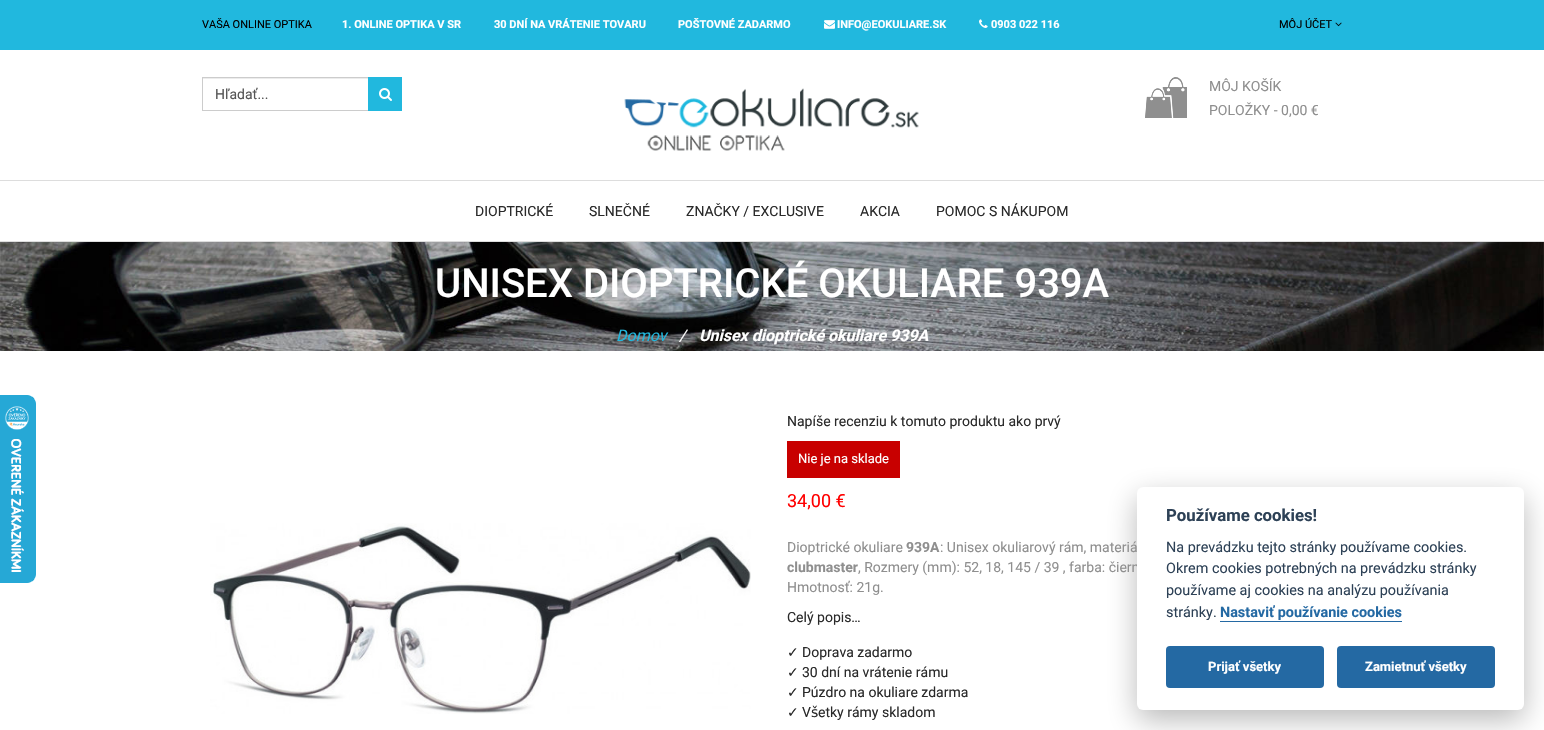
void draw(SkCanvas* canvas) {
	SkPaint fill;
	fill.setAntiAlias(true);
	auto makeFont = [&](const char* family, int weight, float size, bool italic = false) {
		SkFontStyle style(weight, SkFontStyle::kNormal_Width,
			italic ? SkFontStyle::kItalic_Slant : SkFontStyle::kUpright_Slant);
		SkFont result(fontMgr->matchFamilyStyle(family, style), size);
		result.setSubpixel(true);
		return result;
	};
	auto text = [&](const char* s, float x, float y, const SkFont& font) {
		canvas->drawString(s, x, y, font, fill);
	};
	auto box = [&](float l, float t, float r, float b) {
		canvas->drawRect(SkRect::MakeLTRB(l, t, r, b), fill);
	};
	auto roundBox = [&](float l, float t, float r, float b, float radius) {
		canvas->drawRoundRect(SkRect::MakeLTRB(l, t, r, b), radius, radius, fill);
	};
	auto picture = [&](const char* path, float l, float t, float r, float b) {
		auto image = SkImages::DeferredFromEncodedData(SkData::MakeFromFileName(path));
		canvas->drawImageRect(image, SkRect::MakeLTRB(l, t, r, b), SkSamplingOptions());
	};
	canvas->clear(0xFFFFFFFF);
	fill.setColor(0xFF21B8DE);
	box(0, 0, 1544, 50);
	picture("image0.png", 824, 20, 835, 29);
	picture("image1.png", 979, 19, 988, 28);
	picture("image2.png", 1335, 22, 1342, 27);
	fill.setColor(0xFFECECEC);
	box(203, 78, 368, 79);
	fill.setStyle(SkPaint::kStroke_Style);
	fill.setStrokeWidth(1);
	fill.setColor(0xFFCCCCCC);
	canvas->drawRect(SkRect::MakeLTRB(202.5f, 77.5f, 399.5f, 110.5f), fill);
	fill.setStyle(SkPaint::kFill_Style);
	fill.setColor(0xFF21B8DE);
	box(368, 77, 402, 111);
	picture("image3.png", 379, 88, 392, 101);
	picture("image4.png", 624, 88, 919, 151);
	picture("image5.png", 1145, 77, 1187, 118);
	fill.setColor(0xFFDDDDDD);
	box(0, 180, 1544, 181);
	box(0, 241, 1544, 242);
	picture("image6.png", 0, 395, 36, 583);
	picture("image7.png", 0, 242, 1544, 351);
	picture("image8.png", 210, 523, 751, 714);
	fill.setColor(0xFFC80000);
	box(787, 441, 900, 478);
	fill.setColor(0x47020203);
	fill.setMaskFilter(SkMaskFilter::MakeBlur(kNormal_SkBlurStyle, 15));
	canvas->drawRoundRect(SkRect::MakeLTRB(1137, 497, 1524, 720), 6, 6, fill);
	fill.setMaskFilter(nullptr);
	auto font1 = makeFont("Roboto", 400, 11);
	fill.setColor(0xFF000000);
	text("VAŠA ONLINE OPTIKA", 202, 28, font1);
	auto font2 = makeFont("Roboto", 700, 11);
	fill.setColor(0xFFFFFFFF);
	text("1. ONLINE OPTIKA V SR", 342, 28, font2);
	text("30 DNÍ NA VRÁTENIE TOVARU", 494, 28, font2);
	text("POŠTOVNÉ ZADARMO", 678, 28, font2);
	text("INFO@EOKULIARE.SK", 837, 28, font2);
	text("0903 022 116", 991, 28, font2);
	fill.setColor(0xFF000000);
	text("MÔJ ÚČET", 1279, 28, font1);
	auto font3 = makeFont("Roboto", 400, 14);
	fill.setColor(0xFF555555);
	text("Hľadať...", 215, 99, font3);
	fill.setColor(0xFF8F8F8F);
	text("MÔJ KOŠÍK", 1209, 91, font3);
	text("POLOŽKY - 0,00 €", 1209, 115, font3);
	fill.setColor(0xFF2A2A2A);
	text("DIOPTRICKÉ", 475, 216, font3);
	text("SLNEČNÉ", 589, 216, font3);
	text("ZNAČKY / EXCLUSIVE", 686, 216, font3);
	text("AKCIA", 860, 216, font3);
	text("POMOC S NÁKUPOM", 936, 216, font3);
	auto font4 = makeFont("Roboto", 500, 40);
	fill.setColor(0xFFFFFFFF);
	text("UNISEX DIOPTRICKÉ OKULIARE 939A", 435, 297, font4);
	auto font5 = makeFont("Roboto", 400, 16, true);
	fill.setColor(0xFF21B8DE);
	text("Domov", 616, 341, font5);
	fill.setColor(0xFFFFFFFF);
	text("/", 679, 341, font5);
	auto font6 = makeFont("Roboto", 700, 16, true);
	text("Unisex dioptrické okuliare 939A", 699, 341, font6);
	fill.setColor(0xFF2A2A2A);
	text("Napíše recenziu k tomuto produktu ako prvý", 787, 426, font3);
	auto font7 = makeFont("Roboto", 400, 13);
	fill.setColor(0xFFFFFFFF);
	text("Nie je na sklade", 798, 463, font7);
	auto font8 = makeFont("Roboto", 400, 18);
	fill.setColor(0xFFFF0000);
	text("34,00 €", 787, 507, font8);
	fill.setColor(0xFF8F8F8F);
	text("Dioptrické okuliare", 787, 552, font3);
	auto font9 = makeFont("Roboto", 700, 14);
	text("939A", 906, 552, font9);
	text(": Unisex okuliarový rám, materiá", 940, 552, font3);
	text("clubmaster", 787, 572, font9);
	text(", Rozmery (mm): 52, 18, 145 / 39 , farba: čiern", 858, 572, font3);
	text("Hmotnosť: 21g.", 787, 592, font3);
	fill.setColor(0xFF2A2A2A);
	text("Celý popis…", 787, 622, font3);
	auto font10 = makeFont("DejaVu Sans", 400, 14);
	text("✓", 787, 657, font10);
	text("Doprava zadarmo", 802, 657, font3);
	text("✓", 787, 677, font10);
	text("30 dní na vrátenie rámu", 802, 677, font3);
	text("✓", 787, 697, font10);
	text("Púzdro na okuliare zdarma", 802, 697, font3);
	text("✓", 787, 717, font10);
	text("V", 802, 717, font3);
	text("š", 811, 717, font10);
	text("etky rámy skladom", 818, 717, font3);
	fill.setColor(0xFFFFFFFF);
	roundBox(1137, 487, 1524, 710, 6);
	auto font11 = makeFont("Roboto", 700, 16.75f);
	fill.setColor(0xFF2D4156);
	text("Používame cookies!", 1166, 521, font11);
	auto font12 = makeFont("Roboto", 400, 14.4f);
	text("Na prevádzku tejto stránky používame cookies.", 1166, 552, font12);
	text("Okrem cookies potrebných na prevádzku stránky", 1166, 573, font12);
	text("používame aj cookies na analýzu používania", 1166, 595, font12);
	text("stránky.", 1166, 617, font12);
	auto font13 = makeFont("Roboto", 700, 14.4f);
	fill.setColor(0xFF2469A3);
	text("Nastaviť používanie cookies", 1220, 617, font13);
	box(1220, 621, 1402, 622);
	roundBox(1166, 646, 1324, 688, 4);
	auto font14 = makeFont("Roboto", 700, 13);
	fill.setColor(0xFFFFFFFF);
	text("Prijať všetky", 1208, 671, font14);
	fill.setColor(0xFF2469A3);
	roundBox(1337, 646, 1495, 688, 4);
	fill.setColor(0xFFFFFFFF);
	text("Zamietnuť všetky", 1365, 671, font14);
}
